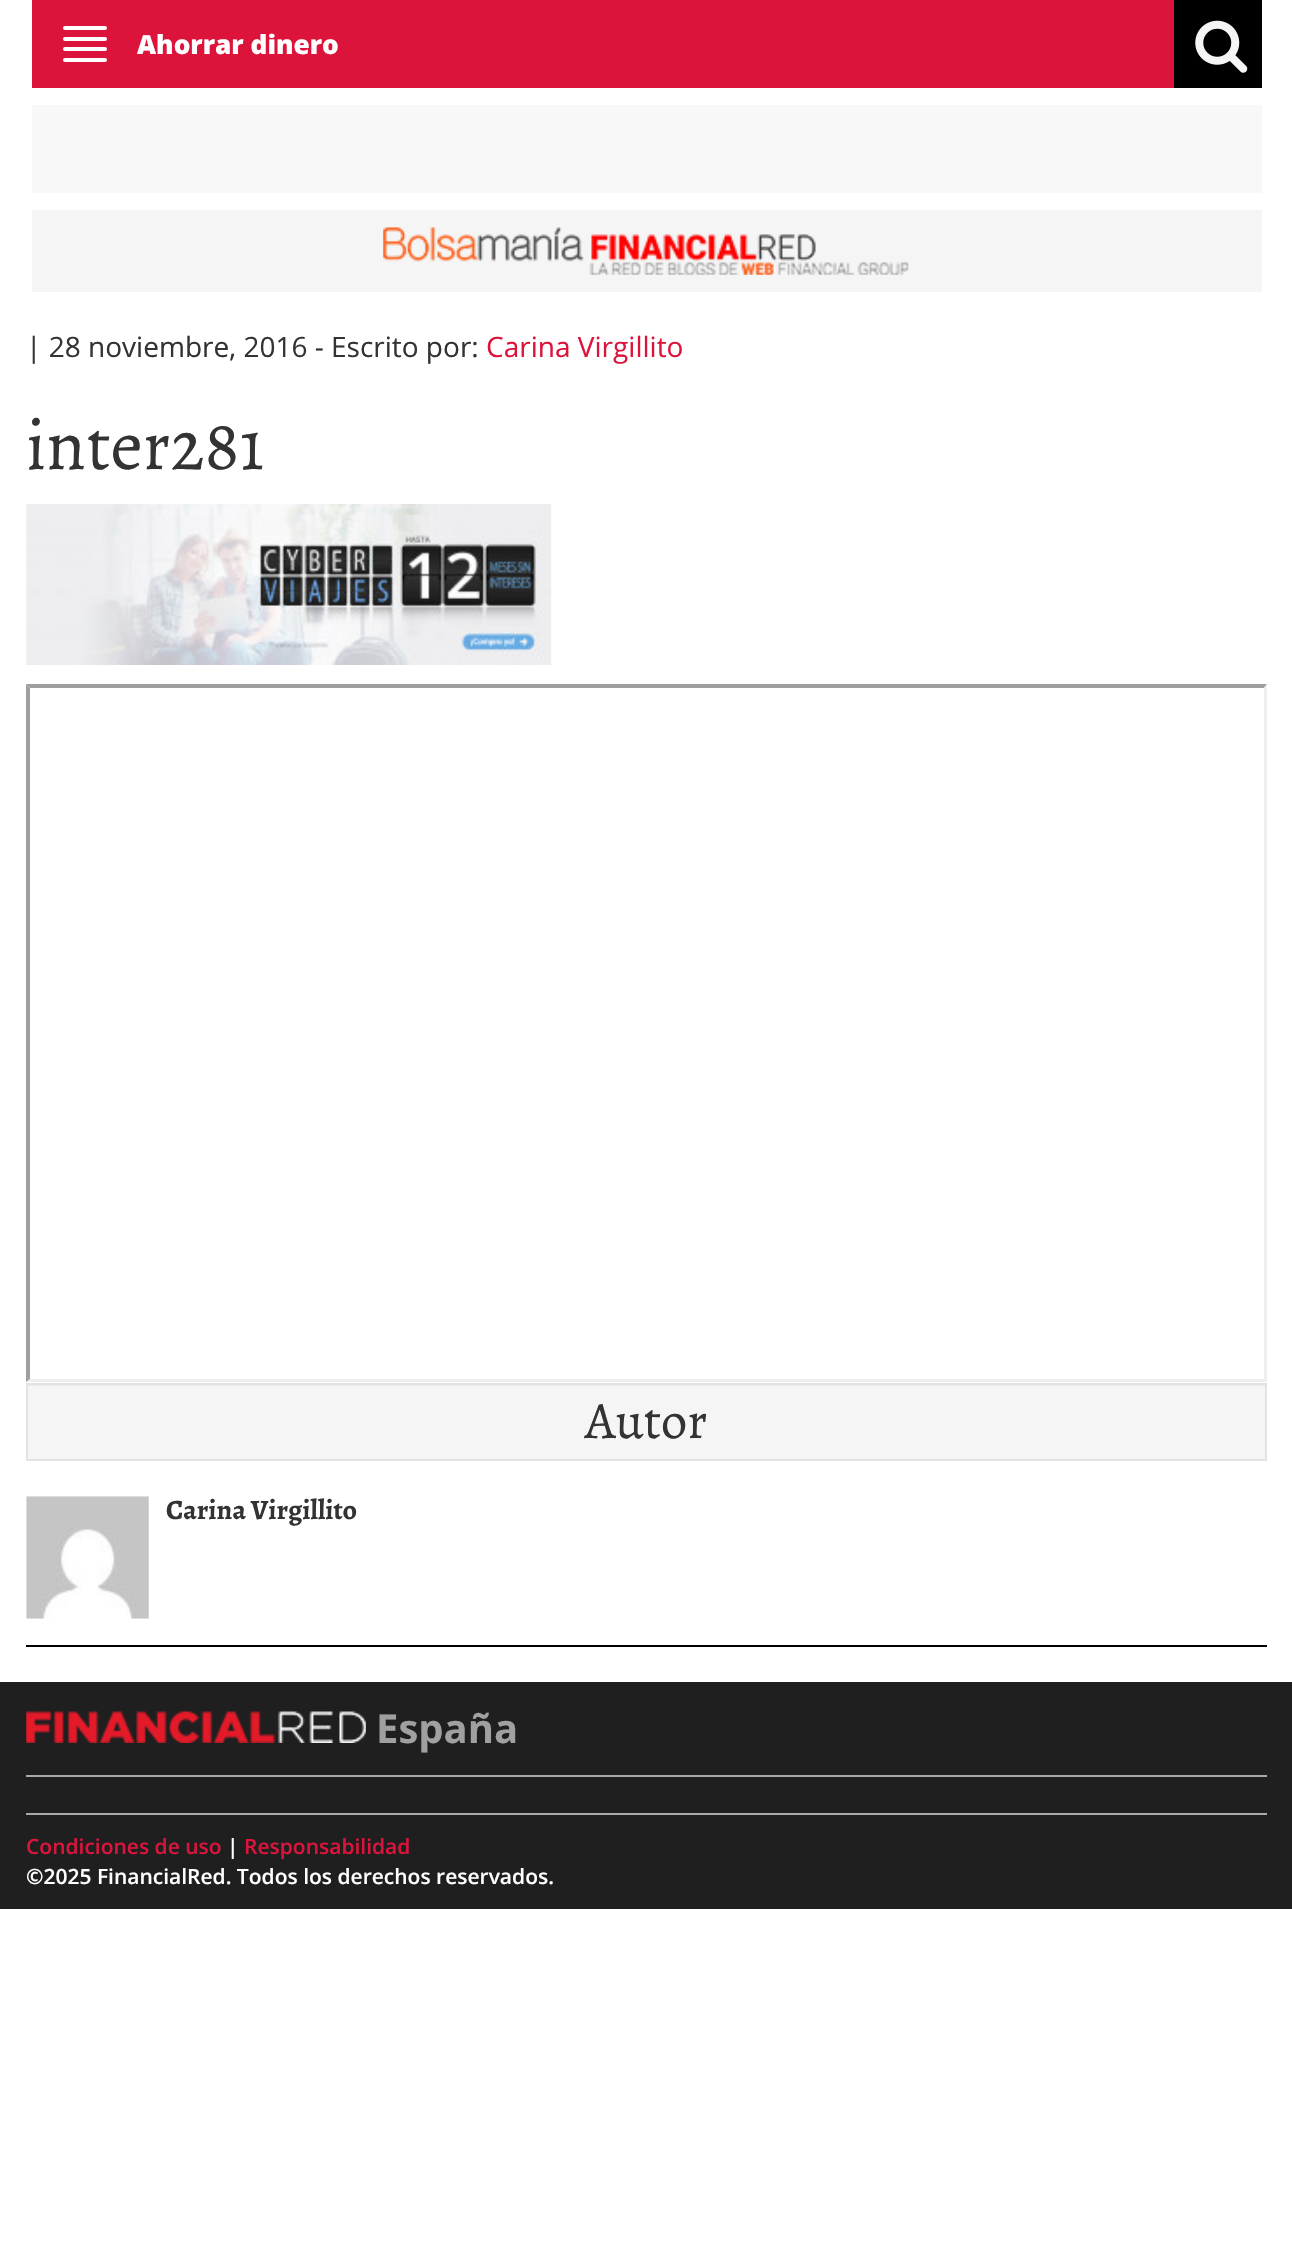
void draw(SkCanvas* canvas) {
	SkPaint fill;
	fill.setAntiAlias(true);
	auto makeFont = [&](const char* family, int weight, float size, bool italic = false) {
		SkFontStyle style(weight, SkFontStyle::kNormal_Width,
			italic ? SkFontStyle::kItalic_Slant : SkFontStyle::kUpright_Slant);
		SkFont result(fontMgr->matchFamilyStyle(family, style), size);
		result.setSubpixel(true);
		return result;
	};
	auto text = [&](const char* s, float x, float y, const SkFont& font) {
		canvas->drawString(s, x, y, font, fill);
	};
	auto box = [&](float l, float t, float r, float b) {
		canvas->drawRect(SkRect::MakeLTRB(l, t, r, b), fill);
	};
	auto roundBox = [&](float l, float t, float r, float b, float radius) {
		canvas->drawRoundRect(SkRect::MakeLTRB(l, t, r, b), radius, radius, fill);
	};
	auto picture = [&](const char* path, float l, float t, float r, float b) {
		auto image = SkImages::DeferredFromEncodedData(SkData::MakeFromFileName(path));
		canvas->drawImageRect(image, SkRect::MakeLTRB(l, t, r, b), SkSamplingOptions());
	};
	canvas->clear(0xFFFFFFFF);
	fill.setColor(0xFFDC143C);
	box(32, 0, 1174, 88);
	fill.setColor(0xFFFFFFFF);
	roundBox(63, 26, 107, 30, 2);
	roundBox(63, 37, 107, 41, 2);
	roundBox(63, 47, 107, 51, 2);
	roundBox(63, 58, 107, 62, 2);
	fill.setColor(0xFF000000);
	box(1174, 0, 1262, 88);
	picture("image0.png", 1195, 20, 1248, 73);
	fill.setColor(0xFFF8F8F8);
	box(32, 105, 1262, 193);
	fill.setColor(0xFFF5F5F5);
	box(32, 210, 1262, 292);
	picture("image1.png", 383, 227, 909, 275);
	picture("image2.png", 26, 504, 552, 665);
	fill.setColor(0xFF9F9F9F);
	canvas->drawPath(SkPathBuilder().moveTo(26, 684).lineTo(1267, 684).lineTo(1264, 688).lineTo(30, 688).close().detach(), fill);
	fill.setColor(0xFFEEEEEE);
	canvas->drawPath(SkPathBuilder().moveTo(1267, 684).lineTo(1267, 1382).lineTo(1264, 1379).lineTo(1264, 688).close().detach(), fill);
	canvas->drawPath(SkPathBuilder().moveTo(1267, 1382).lineTo(26, 1382).lineTo(30, 1379).lineTo(1264, 1379).close().detach(), fill);
	fill.setColor(0xFF9F9F9F);
	canvas->drawPath(SkPathBuilder().moveTo(26, 1382).lineTo(26, 684).lineTo(30, 688).lineTo(30, 1379).close().detach(), fill);
	fill.setColor(0xFF000000);
	box(26, 1645, 1267, 1647);
	fill.setColor(0xFFF5F5F5);
	box(28, 1386, 1265, 1459);
	fill.setColor(0xFFE9E9E9);
	box(28, 1385, 1265, 1386);
	fill.setStyle(SkPaint::kStroke_Style);
	fill.setStrokeWidth(2);
	fill.setColor(0xFFE3E3E3);
	canvas->drawRect(SkRect::MakeLTRB(27, 1384, 1266, 1460), fill);
	picture("image3.png", 26, 1496, 149, 1619);
	fill.setStyle(SkPaint::kFill_Style);
	fill.setColor(0xFF1F1F1F);
	box(0, 1682, 1292, 1909);
	fill.setColor(0xFFA9A9A9);
	box(26, 1775, 1267, 1777);
	picture("image4.png", 26, 1711, 366, 1743);
	box(26, 1813, 1267, 1815);
	auto font1 = makeFont("Open Sans", 800, 26.25f);
	fill.setColor(0xFFFFFFFF);
	text("Ahorrar dinero", 137, 54, font1);
	auto font2 = makeFont("Open Sans", 400, 28);
	fill.setColor(0xFF333333);
	text("| 28 noviembre, 2016 - Escrito por:", 26, 357, font2);
	fill.setColor(0xFFDC143C);
	text("Carina Virgillito", 486, 357, font2);
	auto font3 = makeFont("Alegreya", 400, 72);
	fill.setColor(0xFF333333);
	text("inter281", 26, 469, font3);
	auto font4 = makeFont("Alegreya", 400, 52.5f);
	text("Autor", 585, 1438, font4);
	auto font5 = makeFont("Alegreya", 700, 28);
	text("Carina Virgillito", 166, 1519, font5);
	auto font6 = makeFont("Open Sans", 700, 40);
	fill.setColor(0xFFA0A0A0);
	text("España", 376, 1743, font6);
	auto font7 = makeFont("Open Sans", 600, 21);
	fill.setColor(0xFFDC143C);
	text("Condiciones de uso", 26, 1854, font7);
	fill.setColor(0xFFFFFFFF);
	text("|", 227, 1854, font7);
	fill.setColor(0xFFDC143C);
	text("Responsabilidad", 244, 1854, font7);
	fill.setColor(0xFFFFFFFF);
	text("©2025 FinancialRed. Todos los derechos reservados.", 26, 1884, font7);
}
